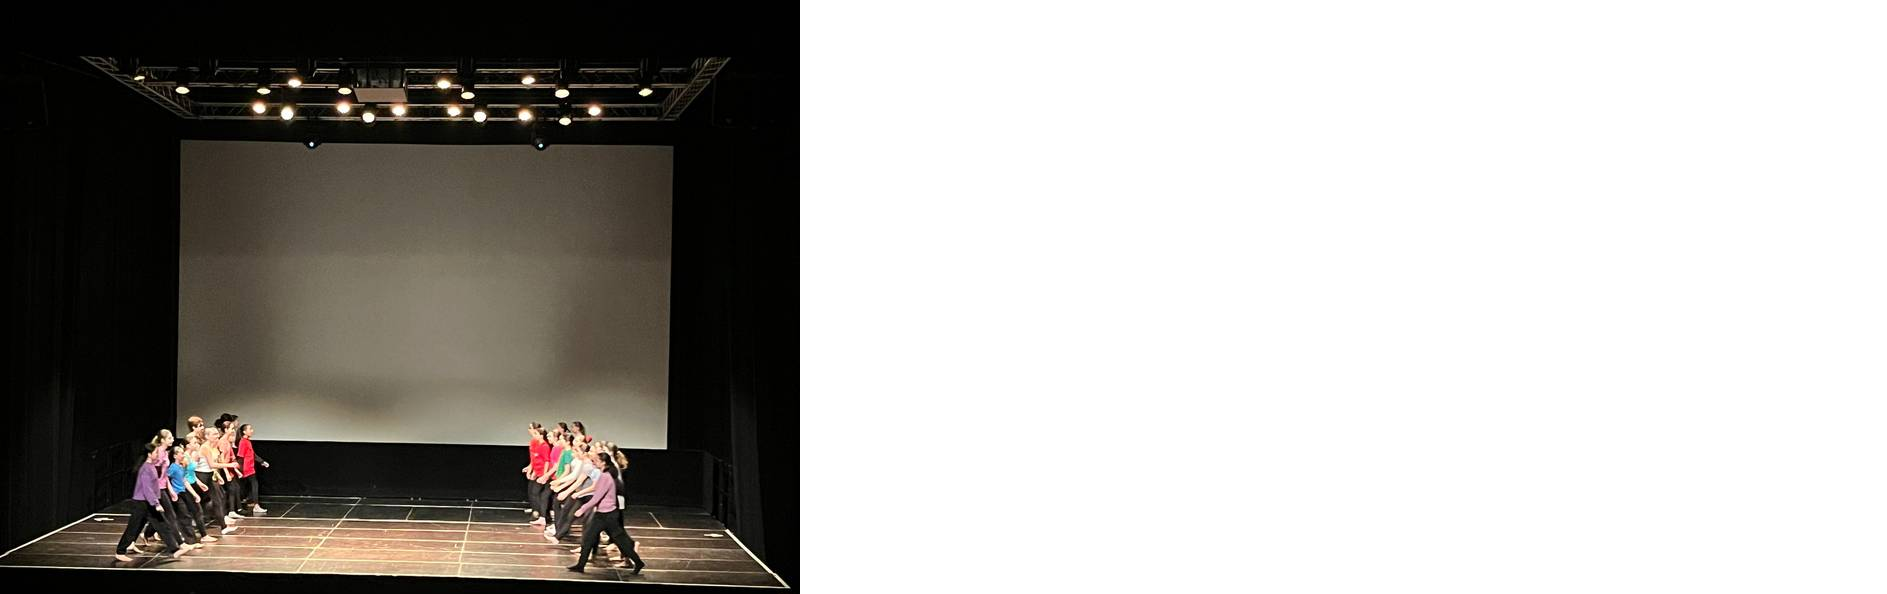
void draw(SkCanvas* canvas) {
	SkPaint fill;
	fill.setAntiAlias(true);
	auto picture = [&](const char* path, float l, float t, float r, float b) {
		auto image = SkImages::DeferredFromEncodedData(SkData::MakeFromFileName(path));
		canvas->drawImageRect(image, SkRect::MakeLTRB(l, t, r, b), SkSamplingOptions());
	};
	canvas->clear(0xFFFFFFFF);
	picture("image0.png", 0, 0, 800, 594);
}
